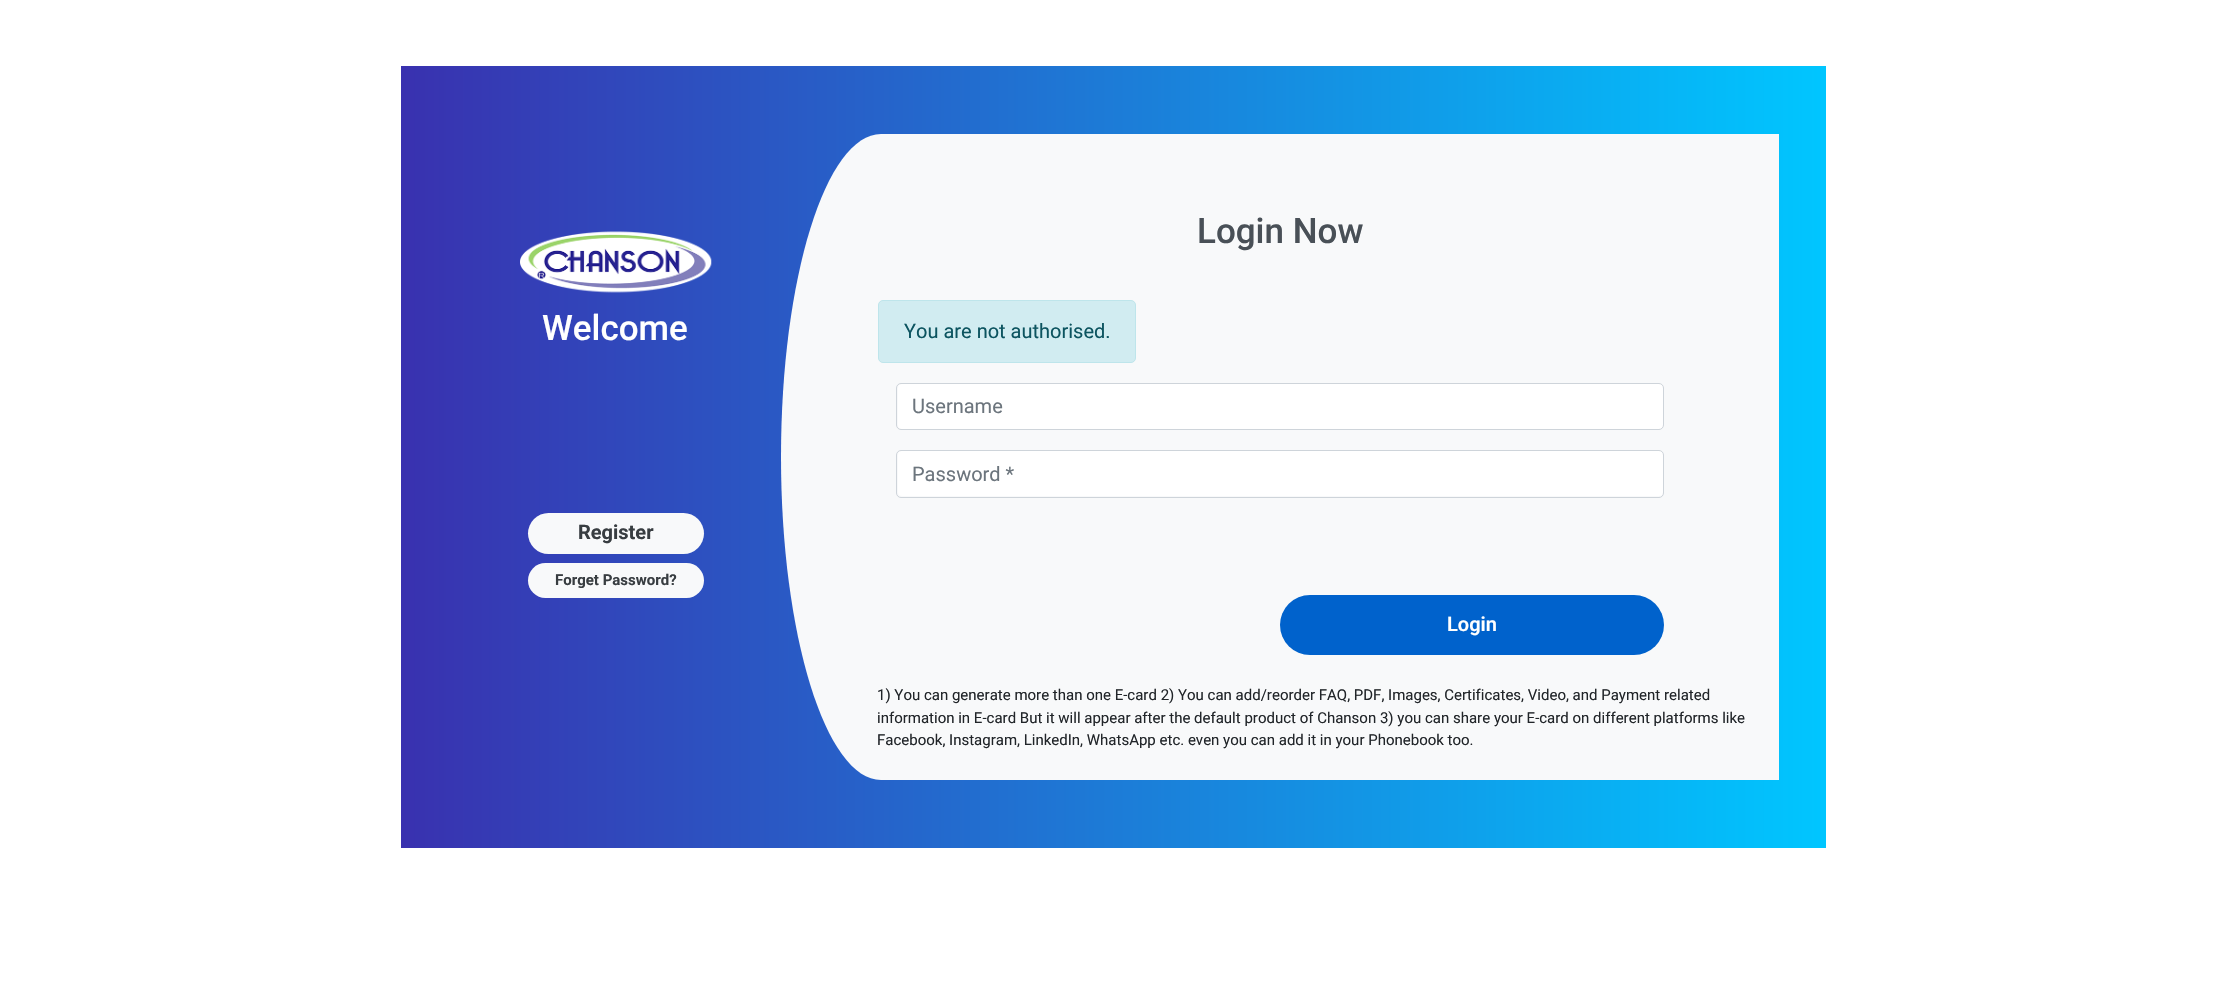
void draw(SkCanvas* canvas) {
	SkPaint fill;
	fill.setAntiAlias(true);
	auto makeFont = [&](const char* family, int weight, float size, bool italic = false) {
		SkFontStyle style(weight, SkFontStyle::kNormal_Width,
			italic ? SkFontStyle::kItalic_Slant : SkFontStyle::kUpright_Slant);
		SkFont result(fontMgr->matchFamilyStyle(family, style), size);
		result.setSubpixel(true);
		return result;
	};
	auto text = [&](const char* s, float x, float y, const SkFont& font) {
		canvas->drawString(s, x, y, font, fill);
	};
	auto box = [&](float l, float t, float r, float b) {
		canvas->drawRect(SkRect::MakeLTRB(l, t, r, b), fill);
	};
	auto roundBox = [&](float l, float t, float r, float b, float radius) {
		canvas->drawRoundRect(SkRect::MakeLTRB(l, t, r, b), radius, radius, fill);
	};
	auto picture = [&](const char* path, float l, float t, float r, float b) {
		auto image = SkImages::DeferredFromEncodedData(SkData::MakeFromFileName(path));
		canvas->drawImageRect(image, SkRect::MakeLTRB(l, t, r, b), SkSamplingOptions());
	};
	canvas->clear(0xFFFFFFFF);
	{
		const SkColor colors[] = {0xFF3931AF, 0xFF00C6FF};
		const float stops[] = {0, 1};
		const SkPoint ends[] = {{401, 457}, {1826, 457}};
		fill.setShader(SkGradientShader::MakeLinear(ends, colors, stops, 2, SkTileMode::kClamp));
		fill.setAlpha(255);
	}
	box(401, 66, 1826, 848);
	picture("image0.png", 520, 231, 712, 293);
	fill.setShader(nullptr);
	fill.setColor(0xFFF8F9FA);
	roundBox(528, 513, 704, 554, 20.5f);
	roundBox(528, 563, 704, 598, 17.5f);
	canvas->drawPath(SkPathBuilder().moveTo(881, 134).lineTo(1779, 134).lineTo(1779, 780).lineTo(881, 780).cubicTo(826, 780, 781, 635, 781, 457).cubicTo(781, 278, 826, 134, 881, 134).close().detach(), fill);
	fill.setColor(0xFFD1ECF1);
	canvas->drawRoundRect(SkRect::MakeLTRB(878.5f, 300.5f, 1135.5f, 362.5f), 4.5f, 4.5f, fill);
	fill.setStyle(SkPaint::kStroke_Style);
	fill.setStrokeWidth(1);
	fill.setColor(0xFFBEE5EB);
	canvas->drawRoundRect(SkRect::MakeLTRB(878.5f, 300.5f, 1135.5f, 362.5f), 4.5f, 4.5f, fill);
	fill.setStyle(SkPaint::kFill_Style);
	fill.setColor(0xFFFFFFFF);
	roundBox(898, 384, 1663, 429, 4);
	fill.setStyle(SkPaint::kStroke_Style);
	fill.setColor(0xFFCED4DA);
	canvas->drawRoundRect(SkRect::MakeLTRB(896.5f, 383.5f, 1663.5f, 429.5f), 4.5f, 4.5f, fill);
	fill.setStyle(SkPaint::kFill_Style);
	fill.setColor(0xFFFFFFFF);
	roundBox(898, 451, 1663, 496, 4);
	fill.setStyle(SkPaint::kStroke_Style);
	fill.setColor(0xFFCED4DA);
	canvas->drawRoundRect(SkRect::MakeLTRB(896.5f, 450.5f, 1663.5f, 497.5f), 4.5f, 4.5f, fill);
	fill.setStyle(SkPaint::kFill_Style);
	fill.setColor(0xFF0062CC);
	roundBox(1280, 595, 1664, 655, 30);
	auto font1 = makeFont("Roboto", 500, 35);
	fill.setColor(0xFFFFFFFF);
	text("Welcome", 542, 340, font1);
	auto font2 = makeFont("Roboto", 700, 20);
	fill.setColor(0xFF383D41);
	text("Register", 578, 539, font2);
	auto font3 = makeFont("Roboto", 700, 15);
	text("Forget Password?", 555, 585, font3);
	fill.setColor(0xFF495057);
	text("Login Now", 1197, 243, font1);
	auto font4 = makeFont("Roboto", 400, 20);
	fill.setColor(0xFF0C5460);
	text("You are not authorised.", 904, 338, font4);
	fill.setColor(0xFF6C757D);
	text("Username", 912, 413, font4);
	text("Password *", 912, 481, font4);
	auto font5 = makeFont("Roboto", 600, 20);
	fill.setColor(0xFFFFFFFF);
	text("Login", 1447, 631, font5);
	auto font6 = makeFont("Roboto", 400, 15);
	fill.setColor(0xFF212529);
	text("1) You can generate more than one E-card 2) You can add/reorder FAQ, PDF, Images, Certificates, Video, and Payment related", 877, 700, font6);
	text("information in E-card But it will appear after the default product of Chanson 3) you can share your E-card on different platforms like", 877, 723, font6);
	text("Facebook, Instagram, LinkedIn, WhatsApp etc. even you can add it in your Phonebook too.", 877, 745, font6);
}
